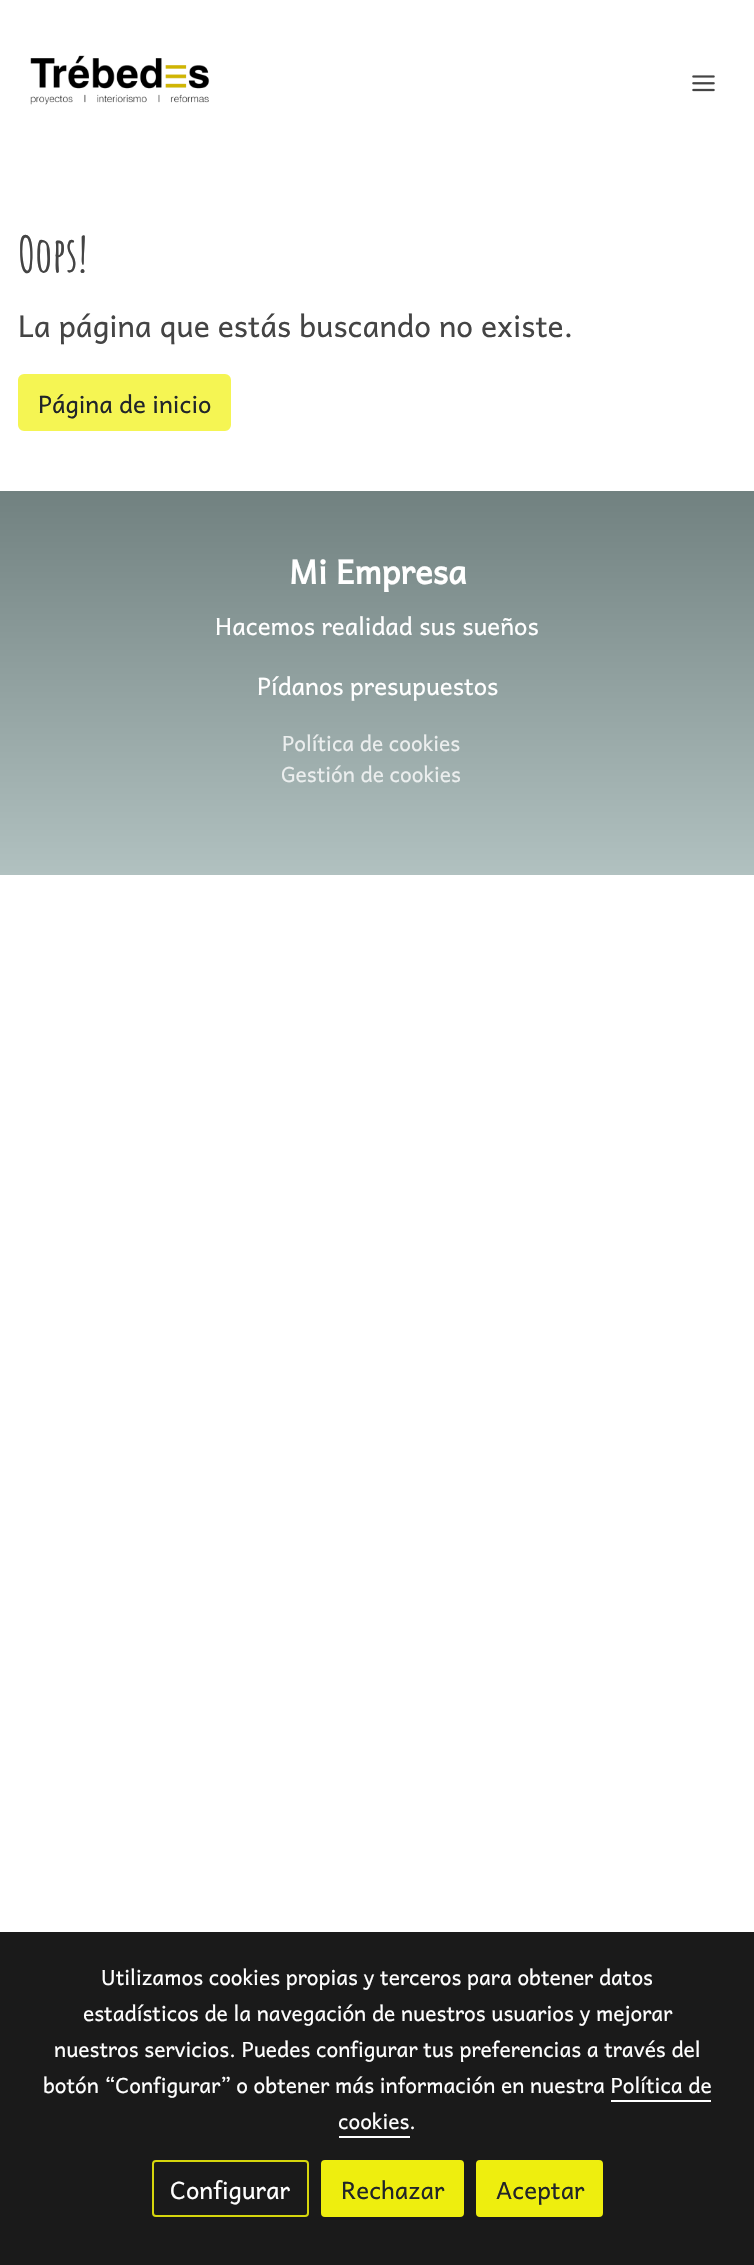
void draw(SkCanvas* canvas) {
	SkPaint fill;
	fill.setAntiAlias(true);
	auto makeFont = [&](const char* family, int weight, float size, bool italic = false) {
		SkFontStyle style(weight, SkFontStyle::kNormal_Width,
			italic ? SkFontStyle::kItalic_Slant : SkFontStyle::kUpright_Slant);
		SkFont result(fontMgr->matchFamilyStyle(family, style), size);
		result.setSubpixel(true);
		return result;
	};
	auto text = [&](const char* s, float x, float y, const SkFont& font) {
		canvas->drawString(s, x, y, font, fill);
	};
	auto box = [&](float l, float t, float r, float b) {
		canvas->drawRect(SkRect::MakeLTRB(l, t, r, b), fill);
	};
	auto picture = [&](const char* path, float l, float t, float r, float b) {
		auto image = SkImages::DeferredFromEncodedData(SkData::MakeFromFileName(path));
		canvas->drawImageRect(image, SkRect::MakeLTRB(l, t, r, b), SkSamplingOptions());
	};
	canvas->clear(0xFFFFFFFF);
	picture("image0.png", 30, 55, 210, 105);
	picture("image1.png", 692, 75, 715, 92);
	fill.setColor(0xFFF5F553);
	canvas->drawRoundRect(SkRect::MakeLTRB(19, 375, 230, 430), 5, 5, fill);
	fill.setStyle(SkPaint::kStroke_Style);
	fill.setStrokeWidth(2);
	canvas->drawRoundRect(SkRect::MakeLTRB(19, 375, 230, 430), 5, 5, fill);
	fill.setStyle(SkPaint::kFill_Style);
	{
		const SkColor colors[] = {0xFFB1C1C0, 0xFF718180};
		const float stops[] = {0, 1};
		const SkPoint ends[] = {{377, 875}, {377, 491}};
		fill.setShader(SkGradientShader::MakeLinear(ends, colors, stops, 2, SkTileMode::kClamp));
		fill.setAlpha(255);
	}
	box(0, 491, 754, 875);
	fill.setShader(nullptr);
	fill.setColor(0xFF1A1A1A);
	box(0, 1932, 754, 2265);
	fill.setColor(0xFFFFFFFF);
	box(611, 2100, 711, 2102);
	box(339, 2136, 410, 2138);
	fill.setStyle(SkPaint::kStroke_Style);
	fill.setColor(0xFFD6D60C);
	canvas->drawRoundRect(SkRect::MakeLTRB(153, 2161, 308, 2216), 3, 3, fill);
	fill.setStyle(SkPaint::kFill_Style);
	fill.setColor(0xFFEEEE0E);
	canvas->drawRoundRect(SkRect::MakeLTRB(322, 2161, 463, 2216), 3, 3, fill);
	fill.setStyle(SkPaint::kStroke_Style);
	canvas->drawRoundRect(SkRect::MakeLTRB(322, 2161, 463, 2216), 3, 3, fill);
	fill.setStyle(SkPaint::kFill_Style);
	canvas->drawRoundRect(SkRect::MakeLTRB(477, 2161, 602, 2216), 3, 3, fill);
	fill.setStyle(SkPaint::kStroke_Style);
	canvas->drawRoundRect(SkRect::MakeLTRB(477, 2161, 602, 2216), 3, 3, fill);
	auto font1 = makeFont("Amatic SC", 700, 48);
	fill.setStyle(SkPaint::kFill_Style);
	fill.setColor(0xFF444444);
	text("Oops!", 18, 272, font1);
	auto font2 = makeFont("Andika", 400, 30);
	text("La página que estás buscando no existe.", 18, 337, font2);
	auto font3 = makeFont("Andika", 400, 24);
	fill.setColor(0xFF212529);
	text("Página de inicio", 38, 413, font3);
	auto font4 = makeFont("Andika", 700, 33);
	fill.setColor(0xFFFFFFFF);
	text("Mi Empresa", 289, 584, font4);
	text("Hacemos realidad sus sueños", 215, 635, font3);
	text("Pídanos presupuestos", 257, 695, font3);
	auto font5 = makeFont("Andika", 400, 21);
	fill.setColor(0xFFEBEEEE);
	text("Política de cookies", 282, 751, font5);
	text("Gestión de cookies", 281, 782, font5);
	fill.setColor(0xFFFFFFFF);
	text("Utilizamos cookies propias y terceros para obtener datos", 101, 1985, font5);
	text("estadísticos de la navegación de nuestros usuarios y mejorar", 83, 2021, font5);
	text("nuestros servicios. Puedes configurar tus preferencias a través del", 54, 2057, font5);
	text("botón “Configurar” o obtener más información en nuestra Política de", 43, 2093, font5);
	text("cookies.", 338, 2129, font5);
	text("Configurar", 170, 2199, font3);
	fill.setColor(0xFF212529);
	text("Rechazar", 341, 2199, font3);
	text("Aceptar", 496, 2199, font3);
}
